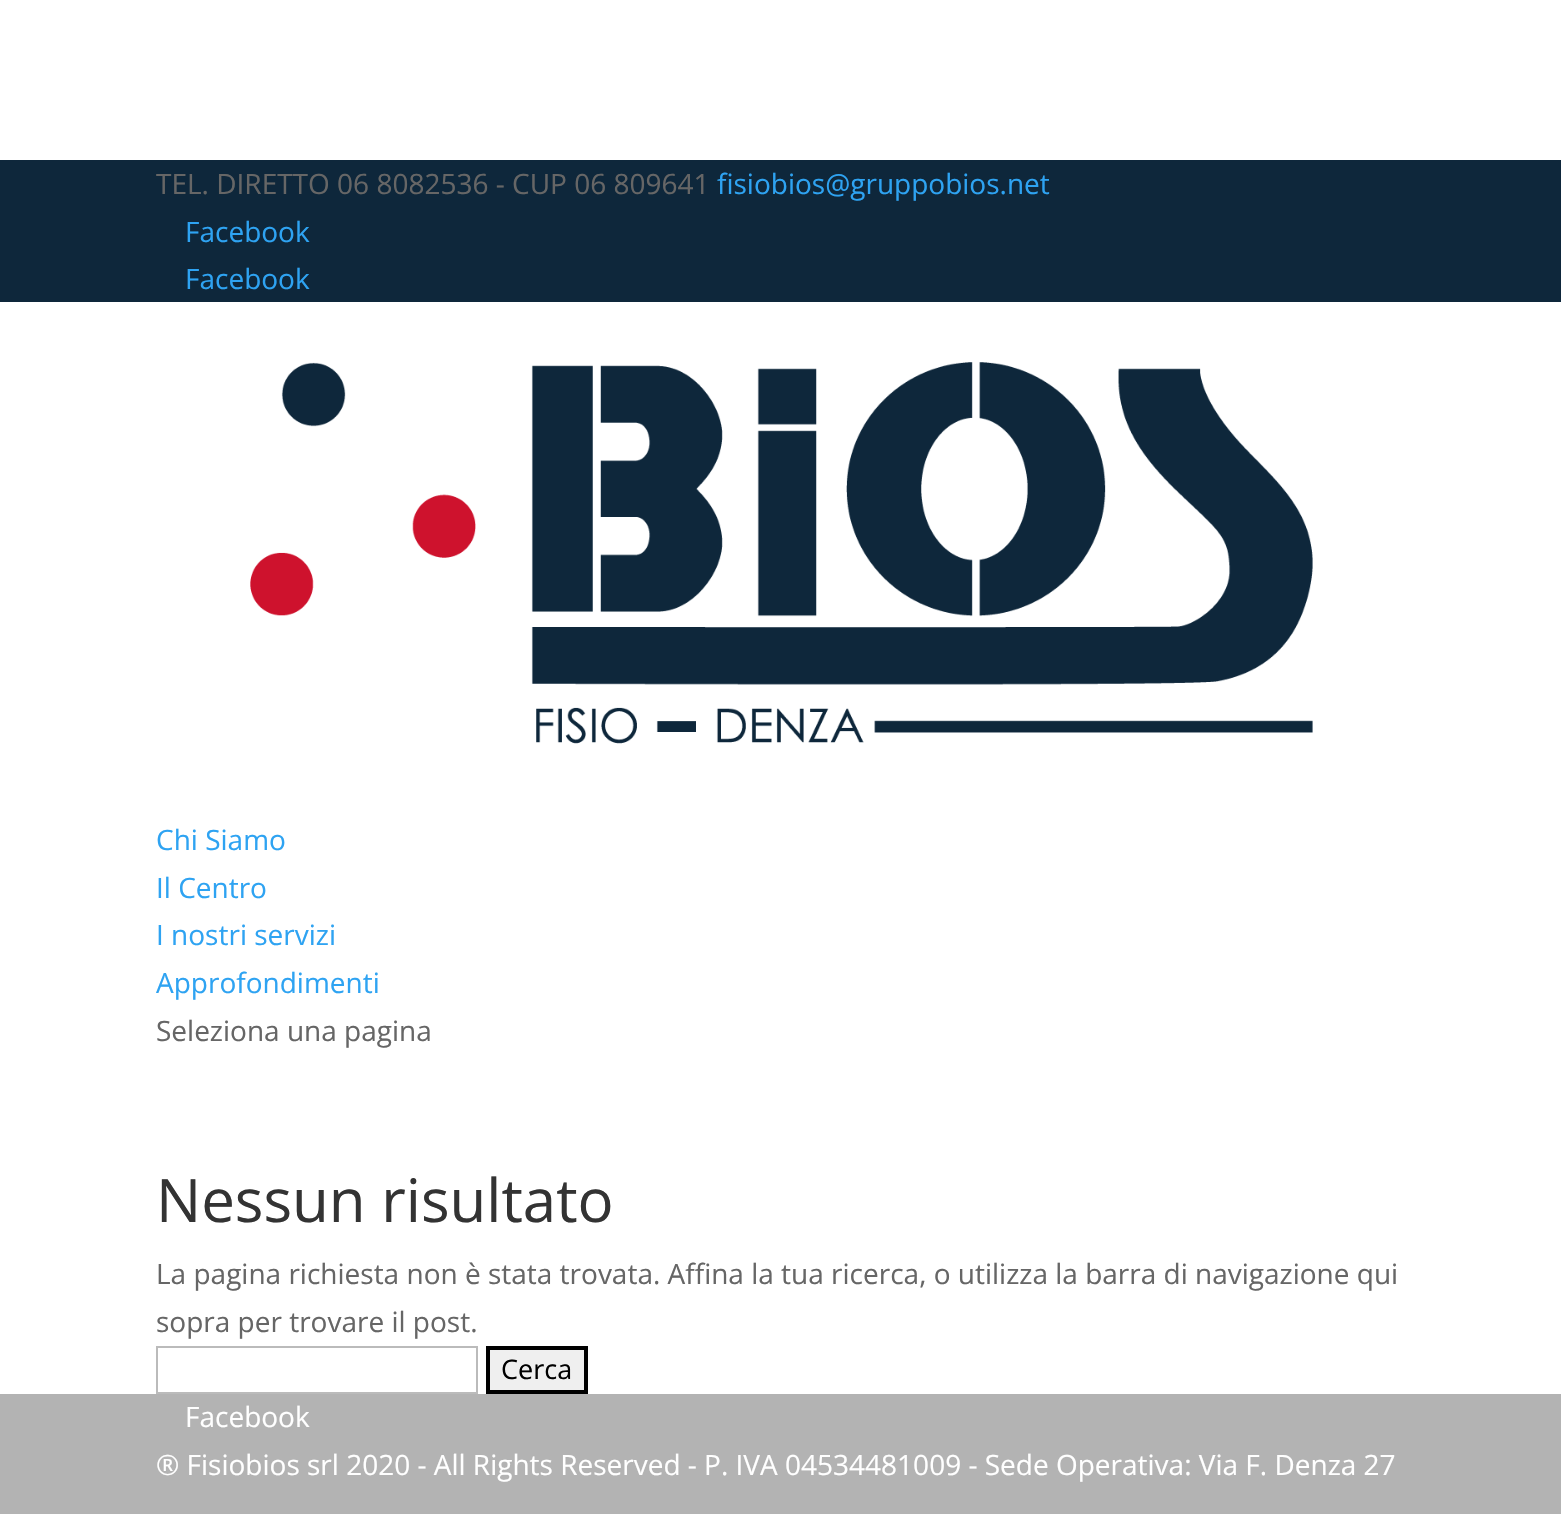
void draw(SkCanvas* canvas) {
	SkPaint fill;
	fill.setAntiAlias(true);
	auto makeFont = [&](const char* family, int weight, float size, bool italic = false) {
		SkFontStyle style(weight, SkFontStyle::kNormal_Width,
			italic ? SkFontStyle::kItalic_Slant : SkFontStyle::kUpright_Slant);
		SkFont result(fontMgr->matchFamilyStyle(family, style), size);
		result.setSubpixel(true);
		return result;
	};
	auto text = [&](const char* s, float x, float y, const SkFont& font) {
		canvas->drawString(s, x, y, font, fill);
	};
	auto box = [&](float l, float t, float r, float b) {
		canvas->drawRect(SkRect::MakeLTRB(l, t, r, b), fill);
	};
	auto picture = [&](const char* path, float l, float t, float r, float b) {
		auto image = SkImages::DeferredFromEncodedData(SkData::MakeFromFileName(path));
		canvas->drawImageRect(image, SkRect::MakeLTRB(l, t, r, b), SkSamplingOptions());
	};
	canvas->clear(0xFFFFFFFF);
	fill.setColor(0xFF0E273B);
	box(0, 160, 1561, 302);
	picture("image0.png", 250, 362, 1313, 744);
	fill.setStyle(SkPaint::kStroke_Style);
	fill.setStrokeWidth(2);
	fill.setColor(0xFFBBBBBB);
	canvas->drawRect(SkRect::MakeLTRB(157, 1347, 477, 1393), fill);
	fill.setStyle(SkPaint::kFill_Style);
	fill.setColor(0xFFEFEFEF);
	canvas->drawRect(SkRect::MakeLTRB(488, 1348, 586, 1392), fill);
	fill.setStyle(SkPaint::kStroke_Style);
	fill.setStrokeWidth(4);
	fill.setColor(0xFF000000);
	canvas->drawRect(SkRect::MakeLTRB(488, 1348, 586, 1392), fill);
	fill.setStyle(SkPaint::kFill_Style);
	fill.setColor(0xFFB3B3B3);
	box(0, 1394, 1561, 1514);
	auto font1 = makeFont("Open Sans", 400, 28);
	fill.setColor(0xFF666666);
	text("TEL. DIRETTO 06 8082536 - CUP 06 809641", 156, 194, font1);
	fill.setColor(0xFF2EA3F2);
	text("fisiobios@gruppobios.net", 717, 194, font1);
	text("Facebook", 185, 242, font1);
	text("Facebook", 185, 289, font1);
	text("Chi Siamo", 156, 850, font1);
	text("Il Centro", 156, 898, font1);
	text("I nostri servizi", 156, 945, font1);
	text("Approfondimenti", 156, 993, font1);
	fill.setColor(0xFF666666);
	text("Seleziona una pagina", 156, 1041, font1);
	auto font2 = makeFont("Open Sans", 400, 60);
	fill.setColor(0xFF333333);
	text("Nessun risultato", 156, 1222, font2);
	fill.setColor(0xFF666666);
	text("La pagina richiesta non è stata trovata. Affina la tua ricerca, o utilizza la barra di navigazione qui", 156, 1284, font1);
	text("sopra per trovare il post.", 156, 1332, font1);
	auto font3 = makeFont("Open Sans", 400, 27);
	fill.setColor(0xFF000000);
	text("Cerca", 501, 1379, font3);
	fill.setColor(0xFFFFFFFF);
	text("Facebook", 185, 1427, font1);
	text("® Fisiobios srl 2020 - All Rights Reserved - P. IVA 04534481009 - Sede Operativa: Via F. Denza 27", 156, 1475, font1);
}
